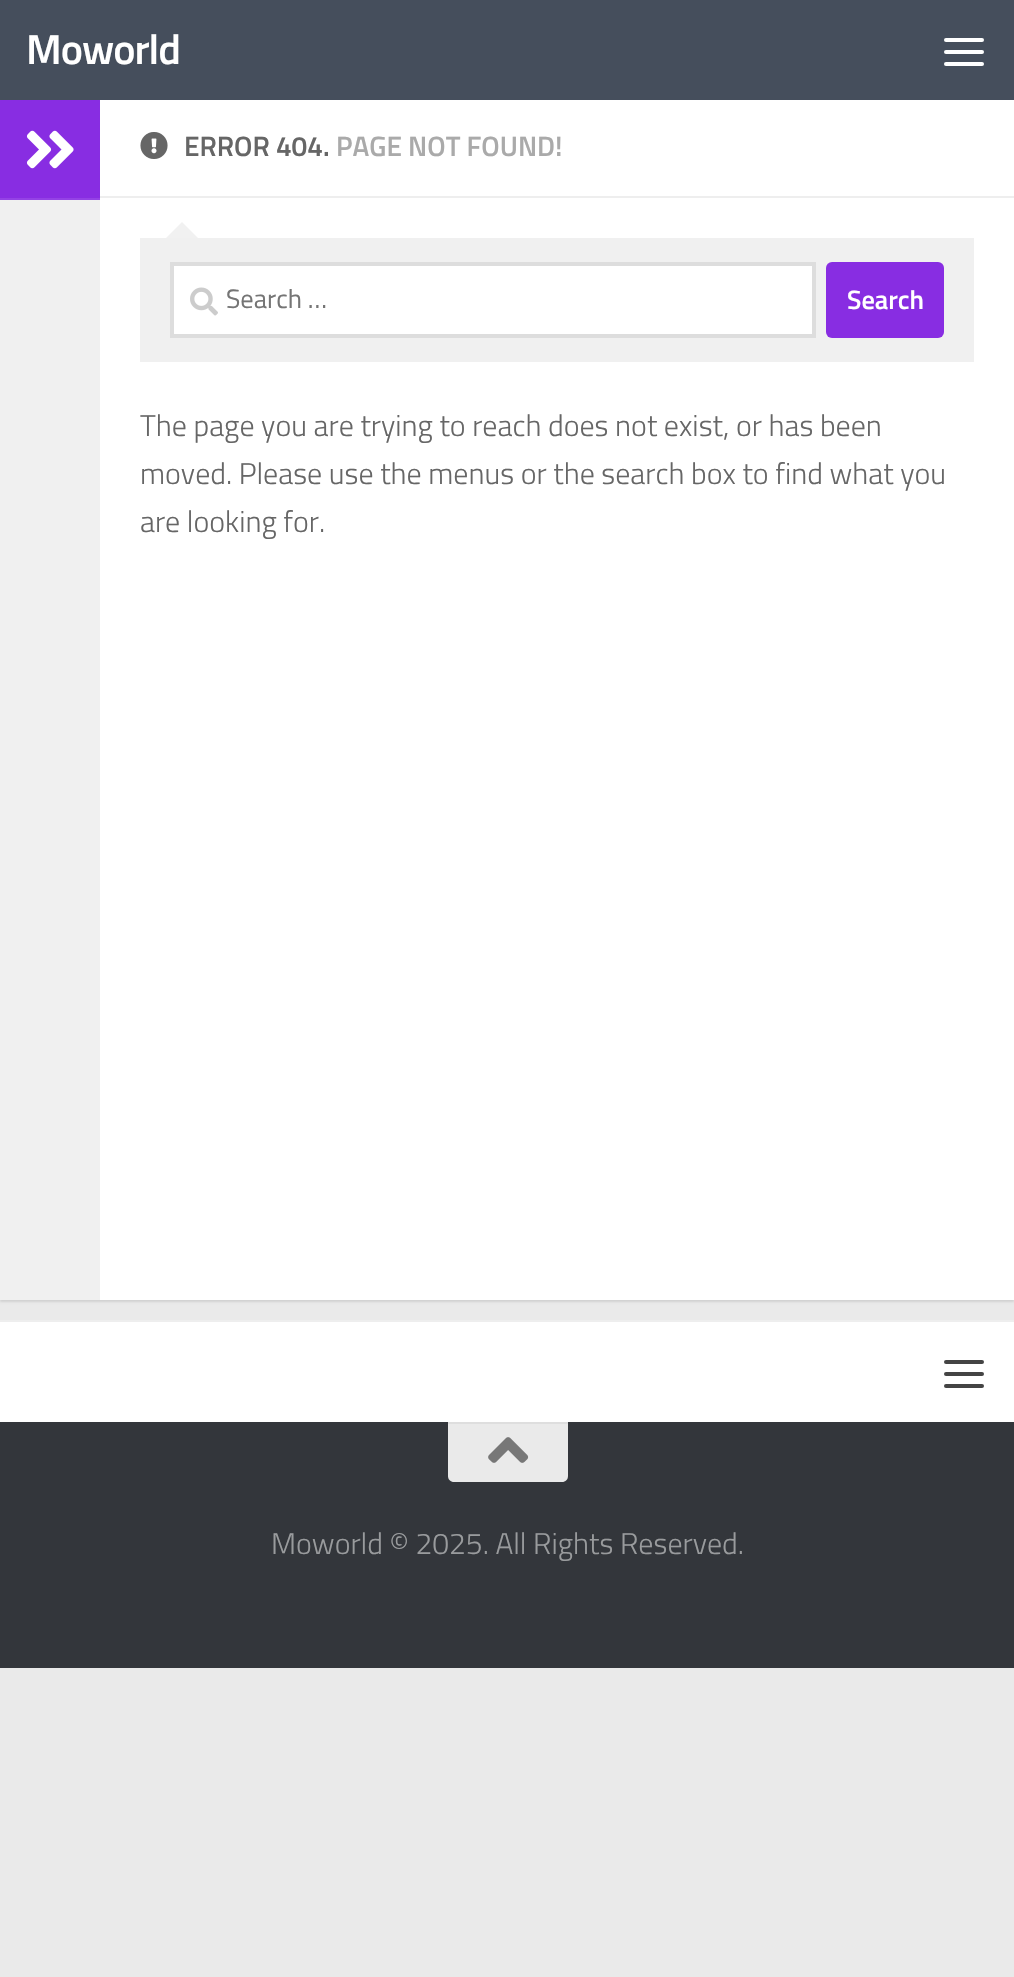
void draw(SkCanvas* canvas) {
	SkPaint fill;
	fill.setAntiAlias(true);
	auto makeFont = [&](const char* family, int weight, float size, bool italic = false) {
		SkFontStyle style(weight, SkFontStyle::kNormal_Width,
			italic ? SkFontStyle::kItalic_Slant : SkFontStyle::kUpright_Slant);
		SkFont result(fontMgr->matchFamilyStyle(family, style), size);
		result.setSubpixel(true);
		return result;
	};
	auto text = [&](const char* s, float x, float y, const SkFont& font) {
		canvas->drawString(s, x, y, font, fill);
	};
	auto spacedText = [&](const char* s, float x, float y, const SkFont& font, const SkPaint& ink, float letter, float word) {
		std::vector<SkGlyphID> glyphs(font.countText(s, strlen(s), SkTextEncoding::kUTF8));
		std::vector<float> xs(glyphs.size());
		font.textToGlyphs(s, strlen(s), SkTextEncoding::kUTF8, glyphs);
		font.getXPos(glyphs, xs, x);
		float extra = 0;
		for (size_t i = 0; i < glyphs.size(); i++) {
			xs[i] += extra;
			extra += letter + word * (glyphs[i] == font.unicharToGlyph(' '));
		}
		canvas->drawTextBlob(SkTextBlob::MakeFromPosHGlyphs(glyphs, xs, y, font), 0, 0, ink);
	};
	auto box = [&](float l, float t, float r, float b) {
		canvas->drawRect(SkRect::MakeLTRB(l, t, r, b), fill);
	};
	auto roundBox = [&](float l, float t, float r, float b, float radius) {
		canvas->drawRoundRect(SkRect::MakeLTRB(l, t, r, b), radius, radius, fill);
	};
	auto picture = [&](const char* path, float l, float t, float r, float b) {
		auto image = SkImages::DeferredFromEncodedData(SkData::MakeFromFileName(path));
		canvas->drawImageRect(image, SkRect::MakeLTRB(l, t, r, b), SkSamplingOptions());
	};
	canvas->clear(0xFFEAEAEA);
	fill.setColor(0x1A000000);
	fill.setMaskFilter(SkMaskFilter::MakeBlur(kNormal_SkBlurStyle, 1));
	canvas->drawRect(SkRect::MakeLTRB(0, 102, 1014, 1302), fill);
	fill.setMaskFilter(nullptr);
	fill.setColor(0xFF454E5C);
	box(0, 0, 1014, 100);
	fill.setColor(0xFFFFFFFF);
	roundBox(944, 38, 984, 42, 2);
	roundBox(944, 50, 984, 54, 2);
	roundBox(944, 62, 984, 66, 2);
	box(100, 100, 1014, 1300);
	fill.setColor(0xFFF0F0F0);
	box(0, 200, 100, 1300);
	fill.setColor(0xFF882DE2);
	box(0, 100, 100, 198);
	fill.setColor(0xFF9442E5);
	box(0, 198, 100, 200);
	picture("image0.png", 26, 130, 74, 169);
	fill.setColor(0xFFEEEEEE);
	box(100, 196, 1014, 198);
	picture("image1.png", 140, 132, 168, 159);
	fill.setColor(0xFFF0F0F0);
	box(140, 238, 974, 362);
	fill.setColor(0xFFF1F1F1);
	canvas->drawPath(SkPathBuilder().moveTo(198, 238).lineTo(166, 238).lineTo(182, 222).close().detach(), fill);
	fill.setColor(0xFFFFFFFF);
	canvas->drawRect(SkRect::MakeLTRB(172, 264, 814, 336), fill);
	fill.setStyle(SkPaint::kStroke_Style);
	fill.setStrokeWidth(4);
	fill.setColor(0xFFDDDDDD);
	canvas->drawRect(SkRect::MakeLTRB(172, 264, 814, 336), fill);
	picture("image2.png", 190, 287, 218, 316);
	fill.setStyle(SkPaint::kFill_Style);
	fill.setColor(0xFF882DE2);
	roundBox(826, 262, 944, 338, 6);
	fill.setColor(0xFFFFFFFF);
	box(0, 1322, 1014, 1422);
	fill.setColor(0xFFEEEEEE);
	box(0, 1320, 1014, 1322);
	fill.setColor(0xFF444444);
	roundBox(944, 1360, 984, 1364, 2);
	roundBox(944, 1372, 984, 1376, 2);
	roundBox(944, 1384, 984, 1388, 2);
	fill.setColor(0xFF33363B);
	box(0, 1422, 1014, 1668);
	fill.setColor(0xFFEAEAEA);
	canvas->drawPath(SkPathBuilder().moveTo(448, 1422).lineTo(568, 1422).lineTo(568, 1476).cubicTo(568, 1479.5f, 565.5f, 1482, 562, 1482).lineTo(454, 1482).cubicTo(450.5f, 1482, 448, 1479.5f, 448, 1476).close().detach(), fill);
	fill.setColor(0xFFDEDEDE);
	box(448, 1422, 568, 1424);
	picture("image3.png", 488, 1437, 529, 1463);
	auto font1 = makeFont("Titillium", 600, 42);
	fill.setColor(0xFFFFFFFF);
	spacedText("Moworld", 26, 64, font1, fill, -1, 0);
	auto font2 = makeFont("Titillium", 600, 28);
	fill.setColor(0xFF666666);
	text("ERROR 404.", 184, 156, font2);
	fill.setColor(0xFFAAAAAA);
	text("PAGE NOT FOUND!", 336, 156, font2);
	auto font3 = makeFont("Titillium", 400, 26.5f);
	fill.setColor(0xFF757575);
	text("Search …", 226, 308, font3);
	auto font4 = makeFont("Titillium", 600, 26.5f);
	fill.setColor(0xFFFFFFFF);
	text("Search", 847, 309, font4);
	auto font5 = makeFont("Titillium", 300, 30);
	fill.setColor(0xFF666666);
	text("The page you are trying to reach does not exist, or has been", 140, 436, font5);
	text("moved. Please use the menus or the search box to find what you", 140, 484, font5);
	text("are looking for.", 140, 532, font5);
	fill.setColor(0xFF999B9D);
	text("Moworld © 2025. All Rights Reserved.", 271, 1554, font5);
}
